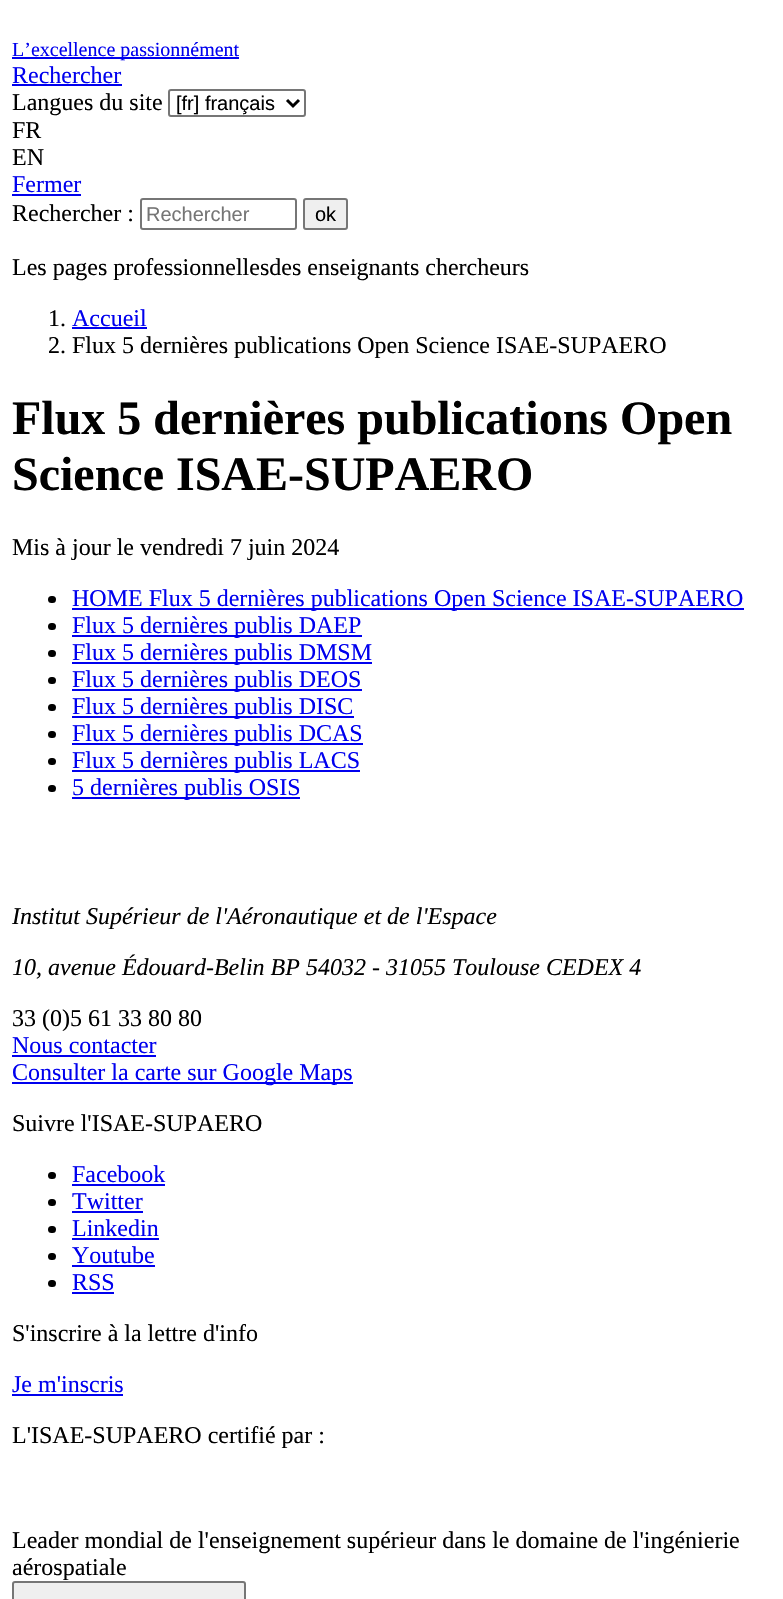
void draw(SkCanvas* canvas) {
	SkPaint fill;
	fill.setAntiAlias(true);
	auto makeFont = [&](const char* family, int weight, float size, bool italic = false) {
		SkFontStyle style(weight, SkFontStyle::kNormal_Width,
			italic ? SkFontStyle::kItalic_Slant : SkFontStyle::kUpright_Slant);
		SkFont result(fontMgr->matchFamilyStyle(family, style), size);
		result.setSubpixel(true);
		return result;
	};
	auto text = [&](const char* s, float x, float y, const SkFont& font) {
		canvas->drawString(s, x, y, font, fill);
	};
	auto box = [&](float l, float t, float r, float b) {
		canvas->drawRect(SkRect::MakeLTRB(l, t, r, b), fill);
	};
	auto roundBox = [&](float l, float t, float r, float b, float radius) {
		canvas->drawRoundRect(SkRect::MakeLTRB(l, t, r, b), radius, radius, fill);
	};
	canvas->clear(0xFFFFFFFF);
	fill.setColor(0xFF0000EE);
	box(12, 57, 239, 59);
	box(12, 84, 122, 86);
	fill.setStyle(SkPaint::kStroke_Style);
	fill.setStrokeWidth(2);
	fill.setColor(0xFF767676);
	canvas->drawRoundRect(SkRect::MakeLTRB(169, 90, 305, 116), 2, 2, fill);
	fill.setStrokeWidth(3);
	fill.setColor(0xFF000000);
	canvas->drawPath(SkPathBuilder().moveTo(287, 100).lineTo(293, 106).lineTo(299, 100).detach(), fill);
	fill.setStyle(SkPaint::kFill_Style);
	fill.setColor(0xFF0000EE);
	box(12, 194, 81, 196);
	fill.setStyle(SkPaint::kStroke_Style);
	fill.setStrokeWidth(2);
	fill.setColor(0xFF767676);
	canvas->drawRoundRect(SkRect::MakeLTRB(141, 199, 296, 229), 2, 2, fill);
	fill.setStyle(SkPaint::kFill_Style);
	fill.setColor(0xFFEFEFEF);
	canvas->drawRoundRect(SkRect::MakeLTRB(304, 199, 347, 229), 2, 2, fill);
	fill.setStyle(SkPaint::kStroke_Style);
	fill.setColor(0xFF767676);
	canvas->drawRoundRect(SkRect::MakeLTRB(304, 199, 347, 229), 2, 2, fill);
	fill.setStyle(SkPaint::kFill_Style);
	fill.setColor(0xFF0000EE);
	box(72, 327, 147, 329);
	fill.setColor(0xFF000000);
	roundBox(48, 596, 56, 603, 3.5f);
	fill.setColor(0xFF0000EE);
	box(72, 608, 744, 610);
	fill.setColor(0xFF000000);
	roundBox(48, 623, 56, 630, 3.5f);
	fill.setColor(0xFF0000EE);
	box(72, 635, 362, 637);
	fill.setColor(0xFF000000);
	roundBox(48, 650, 56, 657, 3.5f);
	fill.setColor(0xFF0000EE);
	box(72, 662, 372, 664);
	fill.setColor(0xFF000000);
	roundBox(48, 677, 56, 684, 3.5f);
	fill.setColor(0xFF0000EE);
	box(72, 689, 362, 691);
	fill.setColor(0xFF000000);
	roundBox(48, 704, 56, 711, 3.5f);
	fill.setColor(0xFF0000EE);
	box(72, 716, 354, 718);
	fill.setColor(0xFF000000);
	roundBox(48, 731, 56, 738, 3.5f);
	fill.setColor(0xFF0000EE);
	box(72, 743, 363, 745);
	fill.setColor(0xFF000000);
	roundBox(48, 758, 56, 765, 3.5f);
	fill.setColor(0xFF0000EE);
	box(72, 770, 360, 772);
	fill.setColor(0xFF000000);
	roundBox(48, 785, 56, 792, 3.5f);
	fill.setColor(0xFF0000EE);
	box(72, 797, 300, 799);
	box(12, 1055, 156, 1057);
	box(12, 1082, 353, 1084);
	fill.setColor(0xFF000000);
	roundBox(48, 1172, 56, 1179, 3.5f);
	fill.setColor(0xFF0000EE);
	box(72, 1184, 165, 1186);
	fill.setColor(0xFF000000);
	roundBox(48, 1199, 56, 1206, 3.5f);
	fill.setColor(0xFF0000EE);
	box(72, 1211, 143, 1213);
	fill.setColor(0xFF000000);
	roundBox(48, 1226, 56, 1233, 3.5f);
	fill.setColor(0xFF0000EE);
	box(72, 1238, 159, 1240);
	fill.setColor(0xFF000000);
	roundBox(48, 1253, 56, 1260, 3.5f);
	fill.setColor(0xFF0000EE);
	box(72, 1265, 155, 1267);
	fill.setColor(0xFF000000);
	roundBox(48, 1280, 56, 1287, 3.5f);
	fill.setColor(0xFF0000EE);
	box(72, 1292, 114, 1294);
	box(12, 1394, 123, 1396);
	fill.setColor(0xFFEFEFEF);
	canvas->drawRoundRect(SkRect::MakeLTRB(13, 1582, 245, 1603), 2, 2, fill);
	fill.setStyle(SkPaint::kStroke_Style);
	fill.setColor(0xFF767676);
	canvas->drawRoundRect(SkRect::MakeLTRB(13, 1582, 245, 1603), 2, 2, fill);
	auto font1 = makeFont("Liberation Serif", 400, 20);
	fill.setStyle(SkPaint::kFill_Style);
	fill.setColor(0xFF0000EE);
	text("L’excellence passionnément", 12, 56, font1);
	auto font2 = makeFont("Liberation Serif", 400, 24);
	text("Rechercher", 12, 83, font2);
	fill.setColor(0xFF000000);
	text("Langues du site", 12, 110, font2);
	auto font3 = makeFont("Liberation Sans", 400, 20);
	text("[fr] français", 176, 110, font3);
	text("FR", 12, 138, font2);
	text("EN", 12, 165, font2);
	fill.setColor(0xFF0000EE);
	text("Fermer", 12, 192, font2);
	fill.setColor(0xFF000000);
	text("Rechercher :", 12, 221, font2);
	fill.setColor(0xFF757575);
	text("Rechercher", 146, 221, font3);
	fill.setColor(0xFF000000);
	text("ok", 315, 221, font3);
	text("Les pages professionnellesdes enseignants chercheurs", 12, 275, font2);
	text("1.", 48, 326, font2);
	fill.setColor(0xFF0000EE);
	text("Accueil", 72, 326, font2);
	fill.setColor(0xFF000000);
	text("2. Flux 5 dernières publications Open Science ISAE-SUPAERO", 48, 353, font2);
	auto font4 = makeFont("Liberation Serif", 700, 48);
	text("Flux 5 dernières publications Open", 12, 434, font4);
	text("Science ISAE-SUPAERO", 12, 490, font4);
	text("Mis à jour le vendredi 7 juin 2024", 12, 555, font2);
	fill.setColor(0xFF0000EE);
	text("HOME Flux 5 dernières publications Open Science ISAE-SUPAERO", 72, 606, font2);
	text("Flux 5 dernières publis DAEP", 72, 633, font2);
	text("Flux 5 dernières publis DMSM", 72, 660, font2);
	text("Flux 5 dernières publis DEOS", 72, 687, font2);
	text("Flux 5 dernières publis DISC", 72, 714, font2);
	text("Flux 5 dernières publis DCAS", 72, 741, font2);
	text("Flux 5 dernières publis LACS", 72, 768, font2);
	text("5 dernières publis OSIS", 72, 795, font2);
	auto font5 = makeFont("Liberation Serif", 400, 24, true);
	fill.setColor(0xFF000000);
	text("Institut Supérieur de l'Aéronautique et de l'Espace", 12, 924, font5);
	text("10, avenue Édouard-Belin BP 54032 - 31055 Toulouse CEDEX 4", 12, 975, font5);
	text("33 (0)5 61 33 80 80", 12, 1026, font2);
	fill.setColor(0xFF0000EE);
	text("Nous contacter", 12, 1053, font2);
	text("Consulter la carte sur Google Maps", 12, 1080, font2);
	fill.setColor(0xFF000000);
	text("Suivre l'ISAE-SUPAERO", 12, 1131, font2);
	fill.setColor(0xFF0000EE);
	text("Facebook", 72, 1182, font2);
	text("Twitter", 72, 1209, font2);
	text("Linkedin", 72, 1236, font2);
	text("Youtube", 72, 1263, font2);
	text("RSS", 72, 1290, font2);
	fill.setColor(0xFF000000);
	text("S'inscrire à la lettre d'info", 12, 1341, font2);
	fill.setColor(0xFF0000EE);
	text("Je m'inscris", 12, 1392, font2);
	fill.setColor(0xFF000000);
	text("L'ISAE-SUPAERO certifié par :", 12, 1443, font2);
	text("Leader mondial de l'enseignement supérieur dans le domaine de l'ingénierie", 12, 1548, font2);
	text("aérospatiale", 12, 1575, font2);
}
